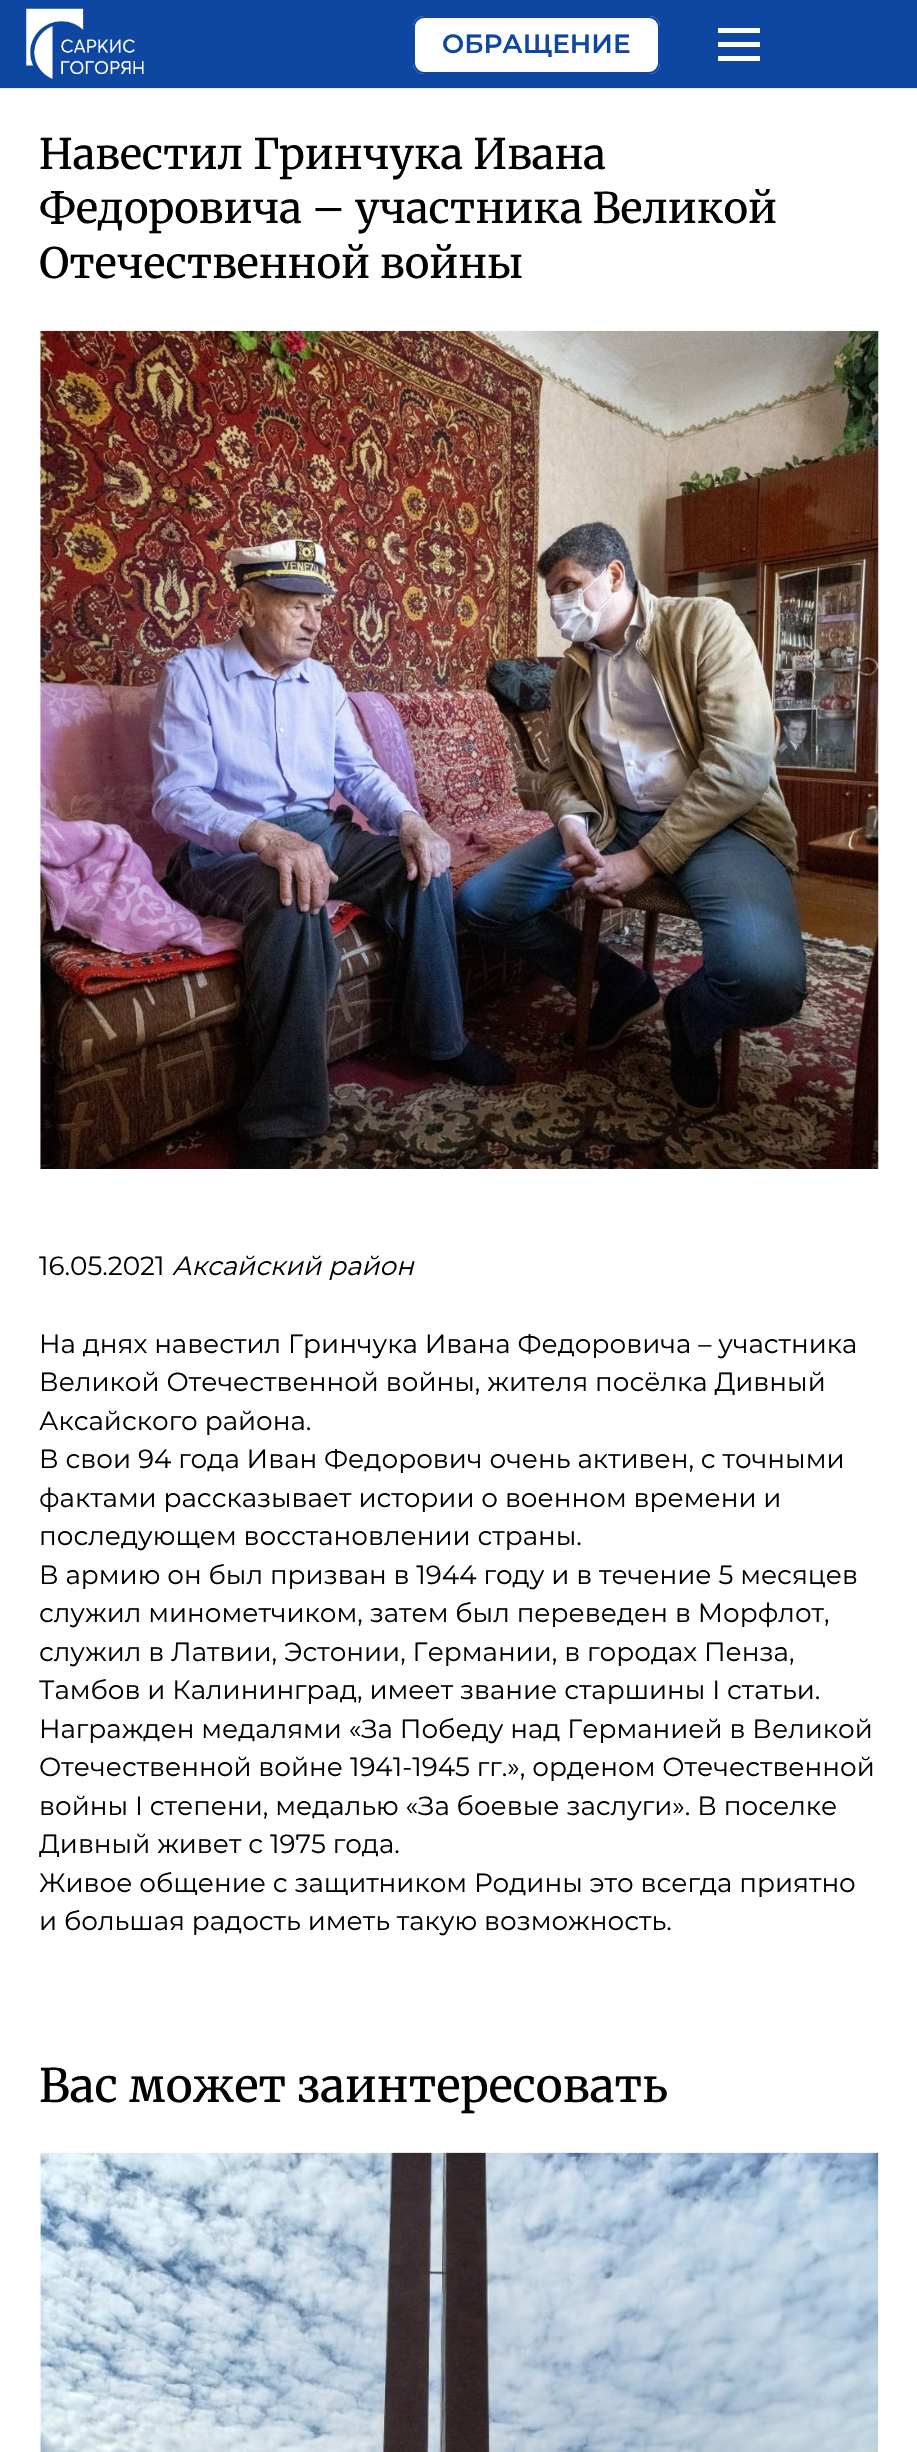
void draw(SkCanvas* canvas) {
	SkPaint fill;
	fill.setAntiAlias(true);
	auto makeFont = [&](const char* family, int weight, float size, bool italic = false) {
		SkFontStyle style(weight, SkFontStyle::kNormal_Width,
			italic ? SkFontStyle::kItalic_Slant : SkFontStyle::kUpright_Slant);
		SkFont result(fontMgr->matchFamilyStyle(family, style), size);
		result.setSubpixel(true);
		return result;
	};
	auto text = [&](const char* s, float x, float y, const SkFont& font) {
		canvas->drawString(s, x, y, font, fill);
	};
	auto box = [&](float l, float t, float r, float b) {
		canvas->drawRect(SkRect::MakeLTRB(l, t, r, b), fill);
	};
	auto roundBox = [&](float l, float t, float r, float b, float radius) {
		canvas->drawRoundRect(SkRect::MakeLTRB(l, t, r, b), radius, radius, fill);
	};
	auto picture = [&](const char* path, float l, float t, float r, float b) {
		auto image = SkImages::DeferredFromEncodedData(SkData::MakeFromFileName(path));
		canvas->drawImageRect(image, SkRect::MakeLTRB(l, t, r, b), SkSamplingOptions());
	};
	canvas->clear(0xFFFFFFFF);
	fill.setColor(0xFFEBEBEB);
	box(0, 88, 917, 89);
	fill.setColor(0xFF0D47A1);
	box(0, 0, 917, 88);
	picture("image0.png", 26, 8, 144, 79);
	fill.setColor(0xFFFFFFFF);
	roundBox(413, 16, 660, 74, 11);
	fill.setStyle(SkPaint::kStroke_Style);
	fill.setStrokeWidth(2);
	fill.setColor(0xFF0D47A1);
	canvas->drawRoundRect(SkRect::MakeLTRB(414, 17, 659, 73), 10, 10, fill);
	fill.setStyle(SkPaint::kFill_Style);
	fill.setColor(0xFFFFFFFF);
	box(718, 42, 760, 47);
	box(718, 28, 760, 33);
	box(718, 56, 760, 61);
	picture("image1.png", 40, 330, 879, 1169);
	picture("image2.png", 40, 2152, 879, 2452);
	auto font1 = makeFont("Montserrat", 600, 26.25f);
	fill.setColor(0xFF0D47A1);
	text("ОБРАЩЕНИЕ", 442, 53, font1);
	auto font2 = makeFont("Merriweather", 400, 42);
	fill.setColor(0xFF000000);
	text("Навестил Гринчука Ивана", 39, 169, font2);
	text("Федоровича – участника Великой", 39, 223, font2);
	text("Отечественной войны", 39, 278, font2);
	auto font3 = makeFont("Montserrat", 400, 26.25f);
	text("16.05.2021", 39, 1275, font3);
	auto font4 = makeFont("Montserrat", 400, 26.25f, true);
	text("Аксайский район", 172, 1275, font4);
	text("На днях навестил Гринчука Ивана Федоровича – участника", 39, 1353, font3);
	text("Великой Отечественной войны, жителя посёлка Дивный", 39, 1391, font3);
	text("Аксайского района.", 39, 1430, font3);
	text("В свои 94 года Иван Федорович очень активен, с точными", 39, 1468, font3);
	text("фактами рассказывает истории о военном времени и", 39, 1507, font3);
	text("последующем восстановлении страны.", 39, 1545, font3);
	text("В армию он был призван в 1944 году и в течение 5 месяцев", 39, 1584, font3);
	text("служил минометчиком, затем был переведен в Морфлот,", 39, 1622, font3);
	text("служил в Латвии, Эстонии, Германии, в городах Пенза,", 39, 1661, font3);
	text("Тамбов и Калининград, имеет звание старшины I статьи.", 39, 1699, font3);
	text("Награжден медалями «За Победу над Германией в Великой", 39, 1738, font3);
	text("Отечественной войне 1941-1945 гг.», орденом Отечественной", 39, 1776, font3);
	text("войны I степени, медалью «За боевые заслуги». В поселке", 39, 1815, font3);
	text("Дивный живет с 1975 года.", 39, 1853, font3);
	text("Живое общение с защитником Родины это всегда приятно", 39, 1892, font3);
	text("и большая радость иметь такую возможность.", 39, 1930, font3);
	auto font5 = makeFont("Merriweather", 400, 46);
	text("Вас может заинтересовать", 39, 2102, font5);
}
